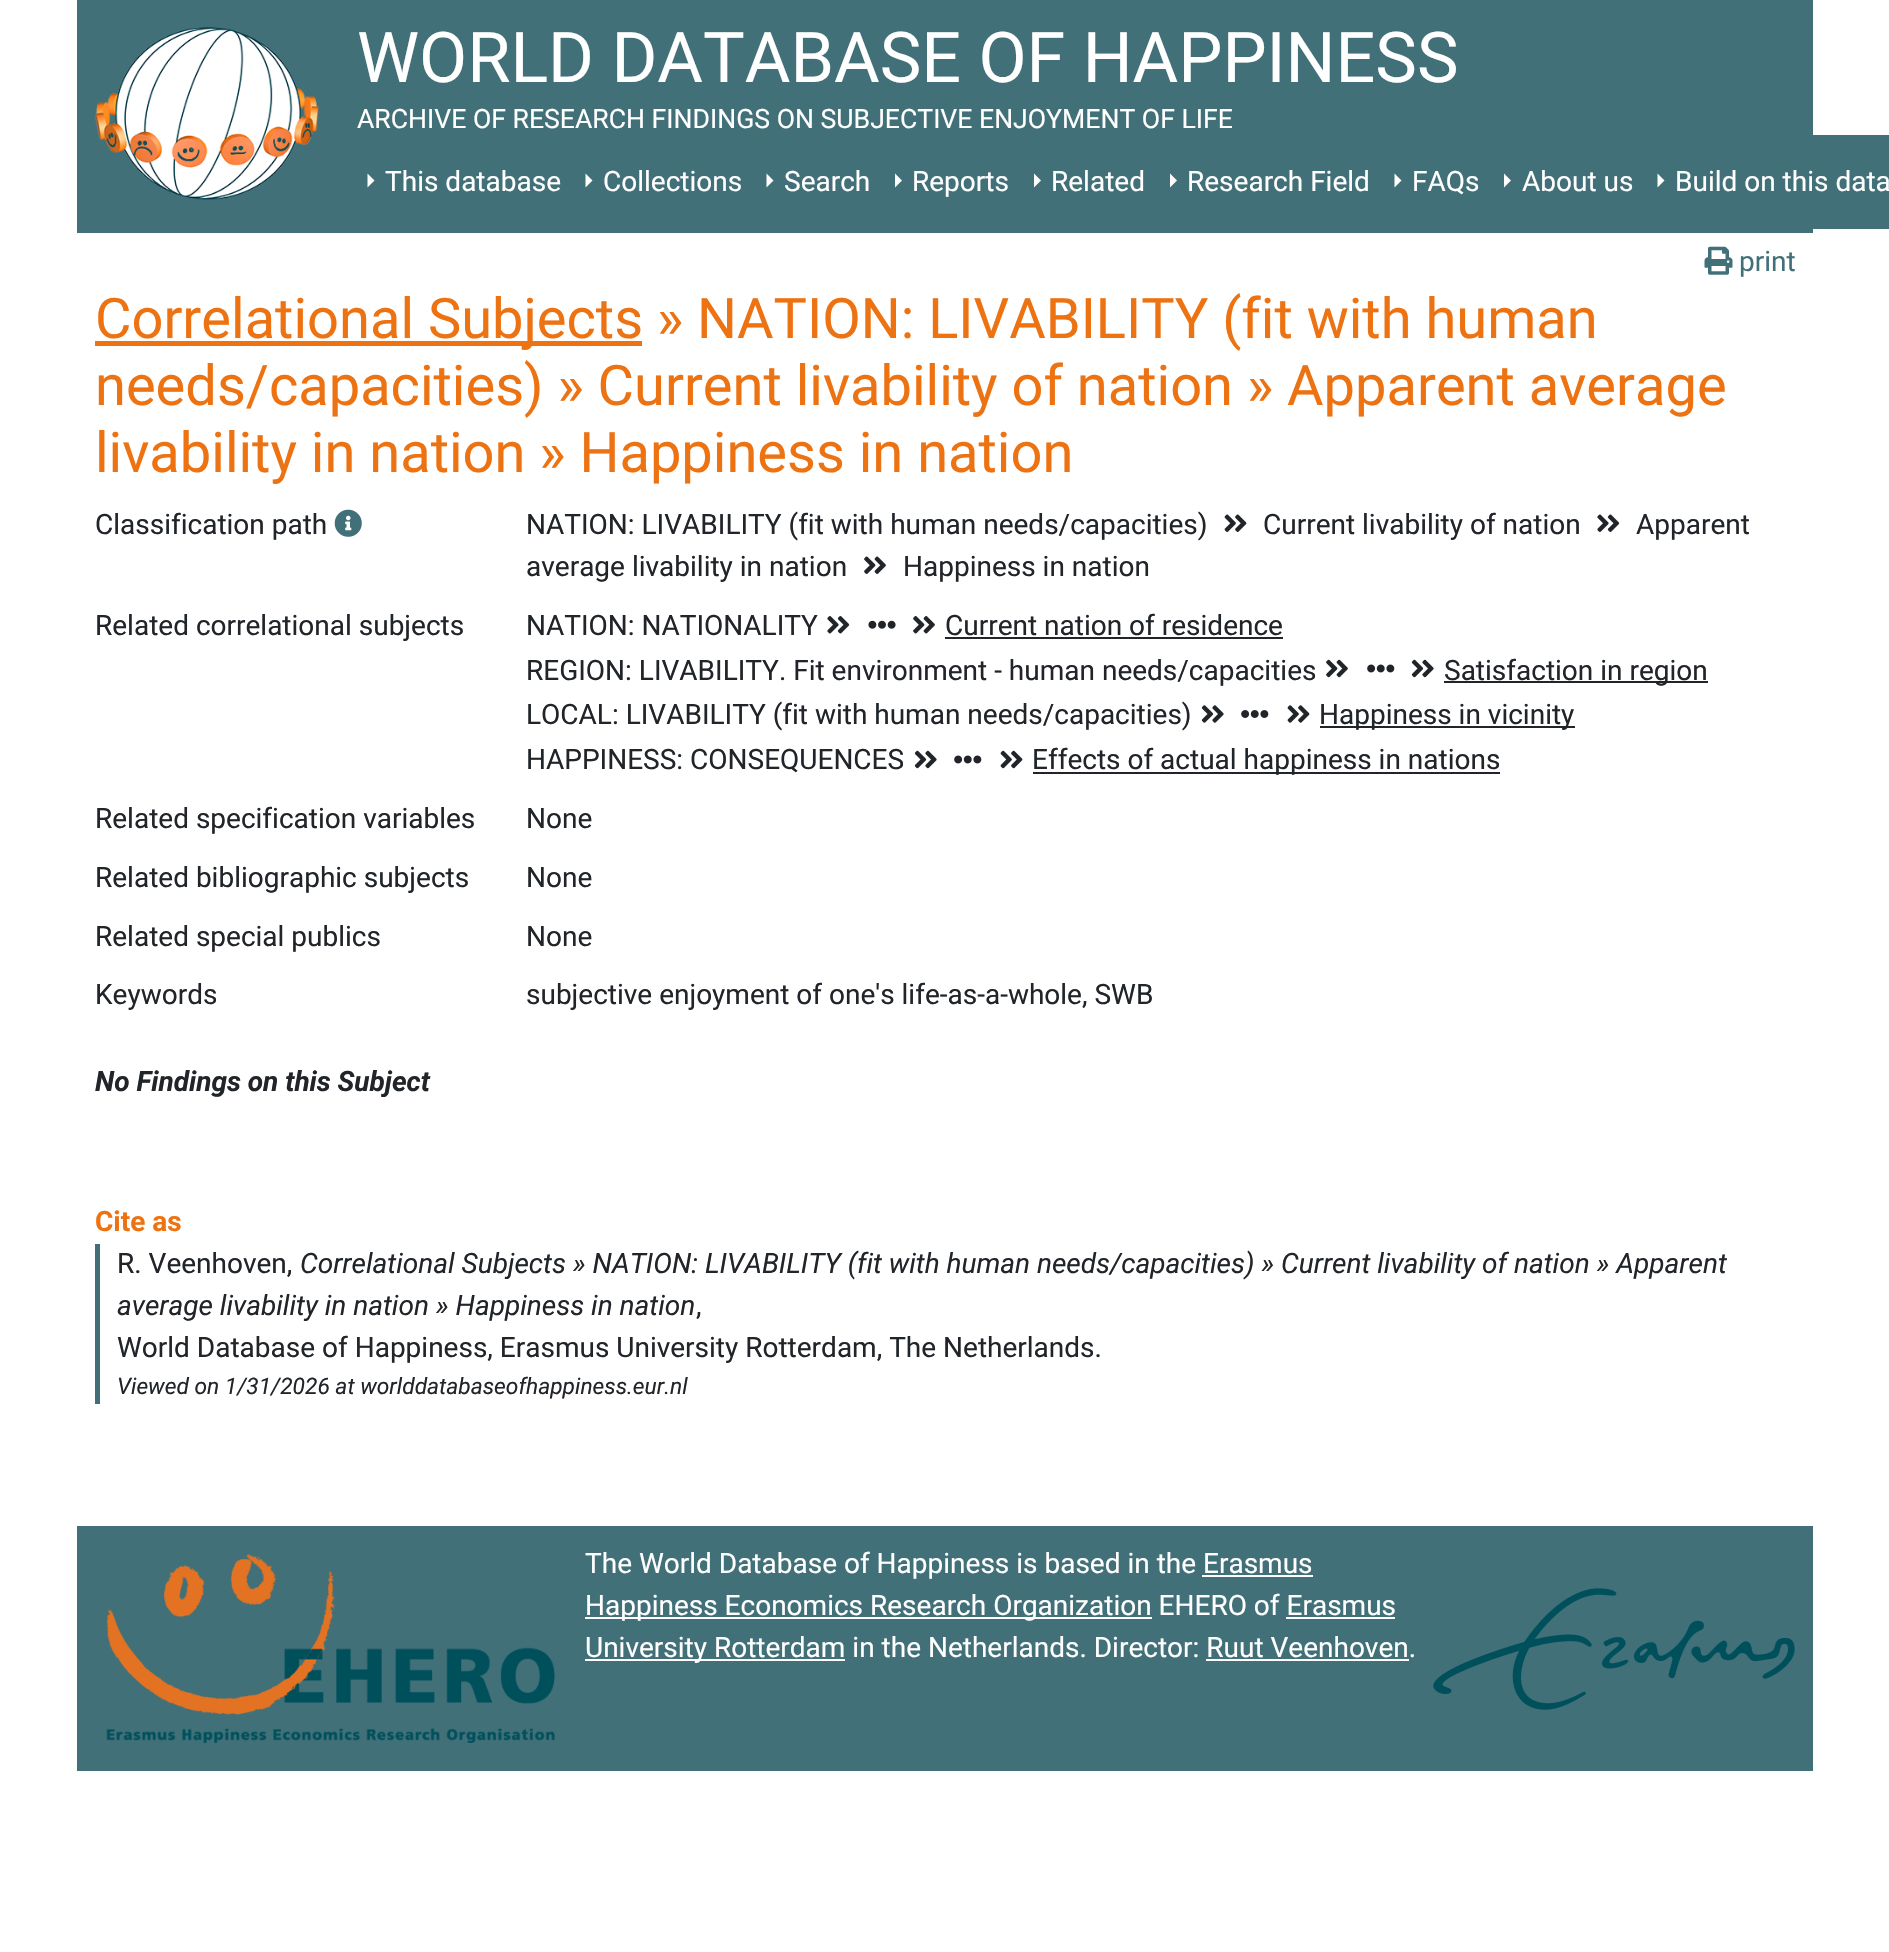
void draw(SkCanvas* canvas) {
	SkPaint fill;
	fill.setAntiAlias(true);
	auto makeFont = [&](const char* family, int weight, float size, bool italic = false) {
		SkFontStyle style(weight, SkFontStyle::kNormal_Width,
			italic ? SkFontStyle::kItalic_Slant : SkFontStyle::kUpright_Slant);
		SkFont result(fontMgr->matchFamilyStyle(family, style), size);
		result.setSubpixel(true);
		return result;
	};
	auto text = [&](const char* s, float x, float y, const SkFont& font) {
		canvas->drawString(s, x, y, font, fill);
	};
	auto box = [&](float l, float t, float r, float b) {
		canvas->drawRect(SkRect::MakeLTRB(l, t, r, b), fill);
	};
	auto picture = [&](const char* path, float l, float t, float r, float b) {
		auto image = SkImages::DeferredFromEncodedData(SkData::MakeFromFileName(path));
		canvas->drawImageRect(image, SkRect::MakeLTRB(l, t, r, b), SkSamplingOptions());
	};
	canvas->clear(0xFFFFFFFF);
	fill.setColor(0xFF417078);
	box(77, 0, 1813, 233);
	picture("image0.png", 95, 27, 319, 200);
	box(1813, 135, 1889, 229);
	fill.setColor(0xFFFFFFFF);
	canvas->drawPath(SkPathBuilder().moveTo(367.5f, 187.5f).lineTo(367.5f, 173.5f).lineTo(374.5f, 180.5f).close().detach(), fill);
	canvas->drawPath(SkPathBuilder().moveTo(585.5f, 187.5f).lineTo(585.5f, 173.5f).lineTo(592.5f, 180.5f).close().detach(), fill);
	canvas->drawPath(SkPathBuilder().moveTo(766.5f, 187.5f).lineTo(766.5f, 173.5f).lineTo(773.5f, 180.5f).close().detach(), fill);
	canvas->drawPath(SkPathBuilder().moveTo(895, 187.5f).lineTo(895, 173.5f).lineTo(902, 180.5f).close().detach(), fill);
	canvas->drawPath(SkPathBuilder().moveTo(1034, 187.5f).lineTo(1034, 173.5f).lineTo(1041, 180.5f).close().detach(), fill);
	canvas->drawPath(SkPathBuilder().moveTo(1170, 187.5f).lineTo(1170, 173.5f).lineTo(1177, 180.5f).close().detach(), fill);
	canvas->drawPath(SkPathBuilder().moveTo(1394.5f, 187.5f).lineTo(1394.5f, 173.5f).lineTo(1401.5f, 180.5f).close().detach(), fill);
	canvas->drawPath(SkPathBuilder().moveTo(1504, 187.5f).lineTo(1504, 173.5f).lineTo(1511, 180.5f).close().detach(), fill);
	canvas->drawPath(SkPathBuilder().moveTo(1657.5f, 187.5f).lineTo(1657.5f, 173.5f).lineTo(1664.5f, 180.5f).close().detach(), fill);
	picture("image1.png", 1704, 246, 1733, 275);
	fill.setColor(0xFFED7212);
	box(95, 341, 642, 346);
	picture("image2.png", 334, 509, 362, 537);
	picture("image3.png", 1224, 514, 1247, 532);
	picture("image4.png", 1597, 514, 1620, 532);
	picture("image5.png", 864, 556, 886, 574);
	picture("image6.png", 827, 616, 850, 634);
	picture("image7.png", 868, 620, 896, 629);
	picture("image8.png", 913, 616, 935, 634);
	fill.setColor(0xFF212529);
	box(945, 637, 1283, 639);
	picture("image9.png", 1326, 659, 1348, 678);
	picture("image10.png", 1367, 664, 1395, 673);
	picture("image11.png", 1411, 659, 1434, 678);
	box(1444, 681, 1708, 683);
	picture("image12.png", 1201, 705, 1224, 723);
	picture("image13.png", 1241, 710, 1269, 718);
	picture("image14.png", 1287, 705, 1310, 723);
	box(1320, 726, 1575, 728);
	picture("image11.png", 914, 750, 937, 769);
	picture("image10.png", 954, 755, 982, 764);
	picture("image15.png", 1000, 750, 1023, 769);
	box(1033, 772, 1500, 774);
	fill.setColor(0xFF417078);
	box(95, 1244, 100, 1404);
	box(77, 1526, 1813, 1771);
	picture("image16.png", 106, 1554, 555, 1743);
	fill.setColor(0xFFFFFFFF);
	box(1202, 1575, 1313, 1577);
	box(585, 1617, 1152, 1619);
	box(1286, 1617, 1395, 1619);
	box(585, 1659, 845, 1661);
	box(1206, 1659, 1409, 1661);
	picture("image17.png", 1433, 1588, 1795, 1710);
	auto font1 = makeFont("Roboto", 400, 70);
	text("WORLD DATABASE OF HAPPINESS", 357, 82, font1);
	auto font2 = makeFont("Roboto", 400, 26.6f);
	text("ARCHIVE OF RESEARCH FINDINGS ON SUBJECTIVE ENJOYMENT OF LIFE", 357, 128, font2);
	auto font3 = makeFont("Roboto", 400, 28);
	text("This database", 385, 191, font3);
	text("Collections", 603, 191, font3);
	text("Search", 784, 191, font3);
	text("Reports", 912, 191, font3);
	text("Related", 1051, 191, font3);
	text("Research Field", 1187, 191, font3);
	text("FAQs", 1412, 191, font3);
	text("About us", 1522, 191, font3);
	text("Build on this data", 1675, 191, font3);
	fill.setColor(0xFF417078);
	text("print", 1739, 271, font3);
	auto font4 = makeFont("Roboto", 400, 56);
	fill.setColor(0xFFED7212);
	text("Correlational Subjects » NATION: LIVABILITY (fit with human", 95, 338, font4);
	text("needs/capacities) » Current livability of nation » Apparent average", 95, 405, font4);
	text("livability in nation » Happiness in nation", 95, 472, font4);
	fill.setColor(0xFF212529);
	text("Classification path", 95, 534, font3);
	text("NATION: LIVABILITY (fit with human needs/capacities)", 526, 534, font3);
	text("Current livability of nation", 1263, 534, font3);
	text("Apparent", 1636, 534, font3);
	text("average livability in nation", 526, 576, font3);
	text("Happiness in nation", 903, 576, font3);
	text("Related correlational subjects", 95, 635, font3);
	text("NATION: NATIONALITY", 526, 635, font3);
	text("Current nation of residence", 945, 635, font3);
	text("REGION: LIVABILITY. Fit environment - human needs/capacities", 526, 680, font3);
	text("Satisfaction in region", 1444, 680, font3);
	text("LOCAL: LIVABILITY (fit with human needs/capacities)", 526, 724, font3);
	text("Happiness in vicinity", 1319, 724, font3);
	text("HAPPINESS: CONSEQUENCES", 526, 769, font3);
	text("Effects of actual happiness in nations", 1032, 769, font3);
	text("Related specification variables", 95, 828, font3);
	text("None", 526, 828, font3);
	text("Related bibliographic subjects", 95, 887, font3);
	text("None", 526, 887, font3);
	text("Related special publics", 95, 946, font3);
	text("None", 526, 946, font3);
	text("Keywords", 95, 1004, font3);
	text("subjective enjoyment of one's life-as-a-whole, SWB", 526, 1004, font3);
	auto font5 = makeFont("Roboto", 700, 28, true);
	text("No Findings on this Subject", 95, 1091, font5);
	auto font6 = makeFont("Roboto", 700, 28);
	fill.setColor(0xFFED7212);
	text("Cite as", 95, 1231, font6);
	fill.setColor(0xFF212529);
	text("R. Veenhoven,", 117, 1273, font3);
	auto font7 = makeFont("Roboto", 400, 28, true);
	text("Correlational Subjects » NATION: LIVABILITY (fit with human needs/capacities) » Current livability of nation » Apparent", 300, 1273, font7);
	text("average livability in nation » Happiness in nation", 117, 1315, font7);
	text(",", 696, 1315, font3);
	text("World Database of Happiness, Erasmus University Rotterdam, The Netherlands.", 117, 1357, font3);
	auto font8 = makeFont("Roboto", 400, 22.75f, true);
	text("Viewed on 1/31/2026 at worlddatabaseofhappiness.eur.nl", 117, 1394, font8);
	fill.setColor(0xFFFFFFFF);
	text("The World Database of Happiness is based in the Erasmus", 585, 1573, font3);
	text("Happiness Economics Research Organization EHERO of Erasmus", 585, 1615, font3);
	text("University Rotterdam in the Netherlands. Director: Ruut Veenhoven.", 585, 1657, font3);
}
